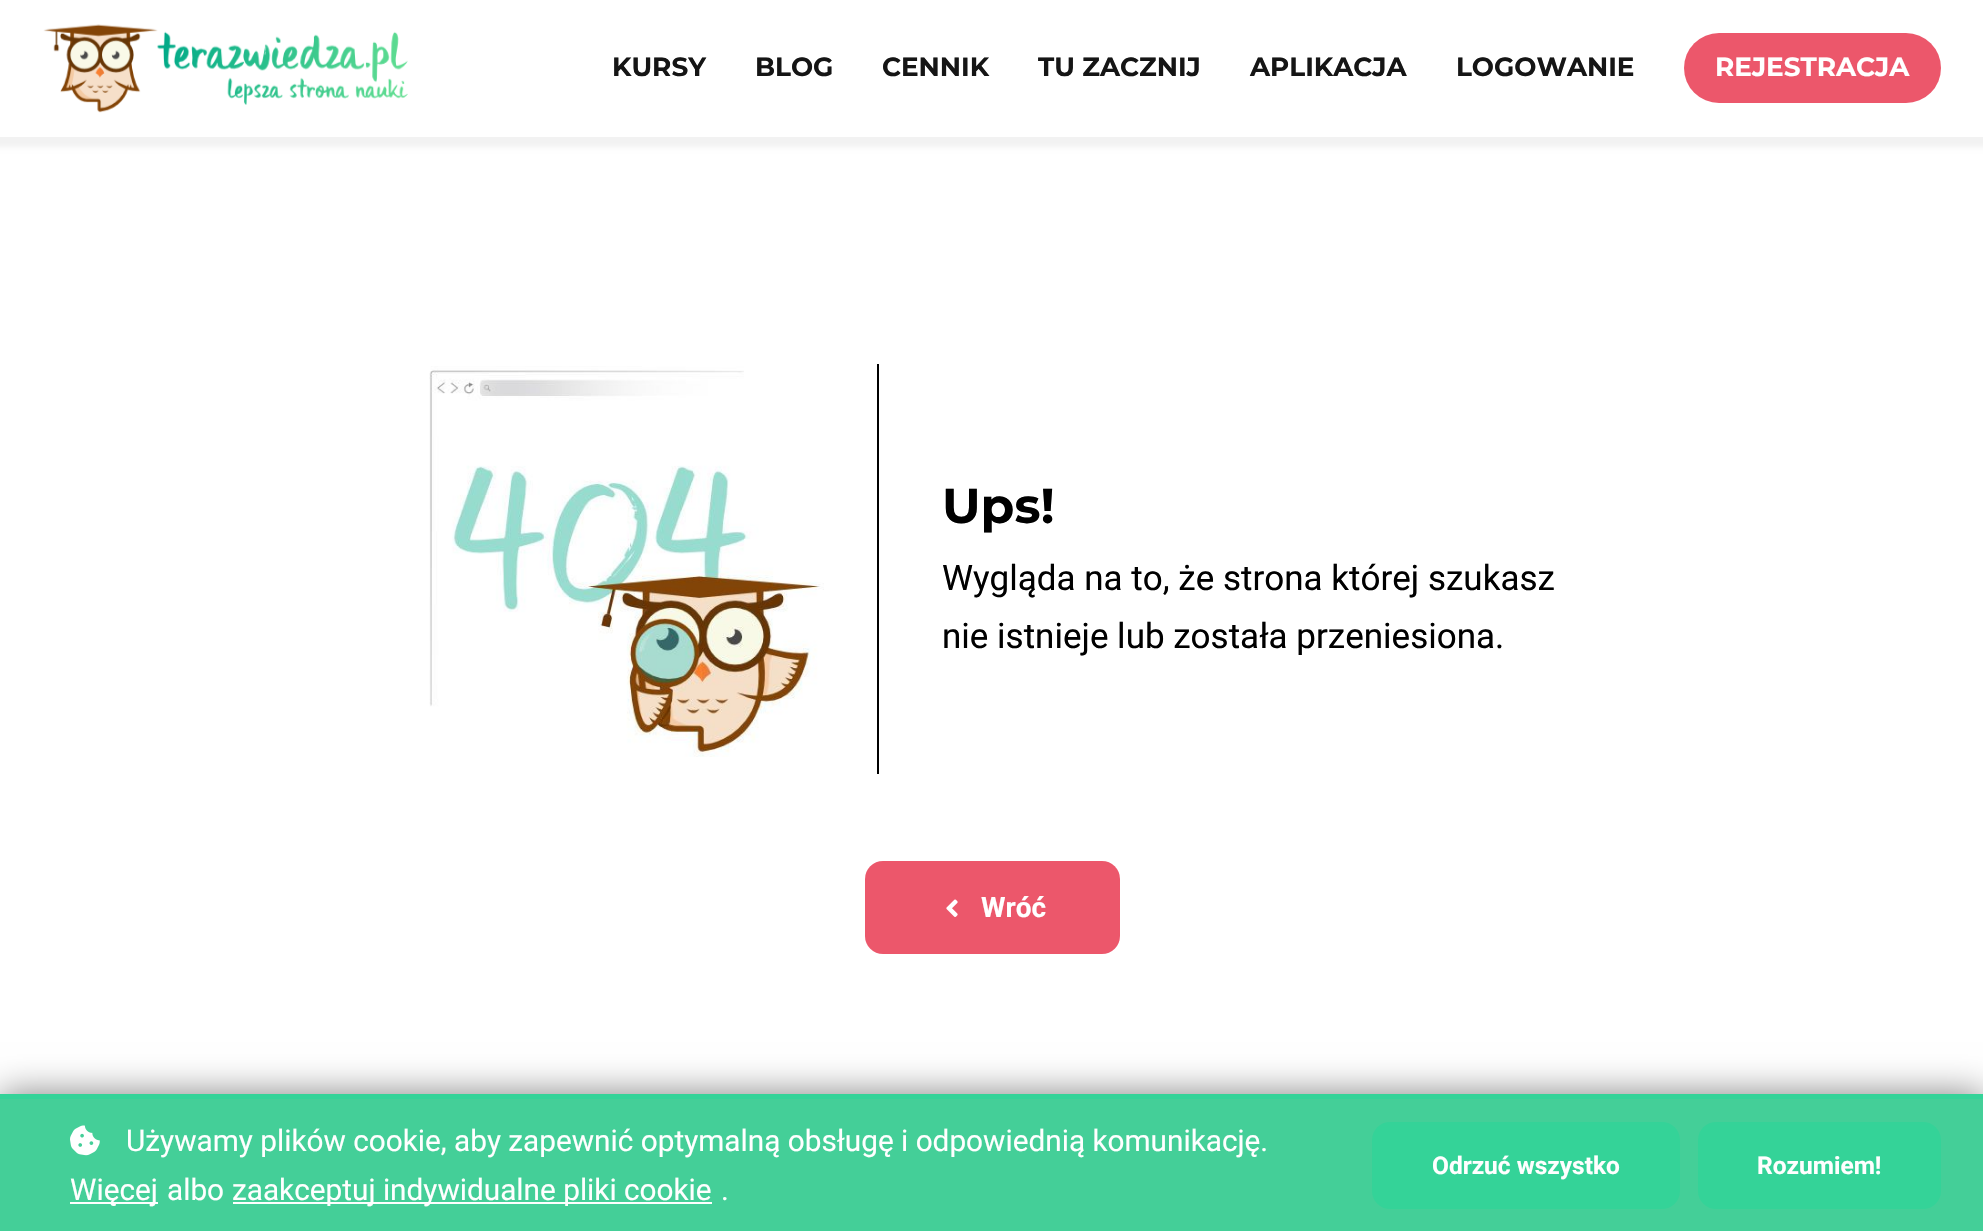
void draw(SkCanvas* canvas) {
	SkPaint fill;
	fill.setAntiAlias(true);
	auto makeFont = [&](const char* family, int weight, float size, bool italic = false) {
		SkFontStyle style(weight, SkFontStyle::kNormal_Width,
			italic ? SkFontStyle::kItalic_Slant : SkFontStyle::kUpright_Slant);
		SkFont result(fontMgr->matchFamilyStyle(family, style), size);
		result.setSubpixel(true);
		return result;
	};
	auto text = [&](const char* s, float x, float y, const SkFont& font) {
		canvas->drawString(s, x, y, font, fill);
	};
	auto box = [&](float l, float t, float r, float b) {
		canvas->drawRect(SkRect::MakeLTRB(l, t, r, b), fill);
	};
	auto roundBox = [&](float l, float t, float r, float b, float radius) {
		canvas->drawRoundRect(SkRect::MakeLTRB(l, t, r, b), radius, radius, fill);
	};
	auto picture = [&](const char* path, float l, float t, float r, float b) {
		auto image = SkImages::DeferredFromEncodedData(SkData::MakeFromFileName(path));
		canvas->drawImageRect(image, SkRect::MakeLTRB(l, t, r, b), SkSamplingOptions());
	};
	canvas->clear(0xFFFFFFFF);
	fill.setColor(0x0D000000);
	fill.setMaskFilter(SkMaskFilter::MakeBlur(kNormal_SkBlurStyle, 2.5f));
	canvas->drawRect(SkRect::MakeLTRB(-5, 0, 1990, 147), fill);
	fill.setMaskFilter(nullptr);
	fill.setColor(0xFFFFFFFF);
	box(0, 0, 1983, 137);
	picture("image0.png", 43, 24, 408, 113);
	fill.setColor(0xFFEC576B);
	roundBox(1684, 33, 1941, 103, 35);
	fill.setColor(0xFF000000);
	box(877, 364, 879, 774);
	picture("image1.png", 429, 366, 824, 757);
	fill.setColor(0xFFEC576B);
	roundBox(865, 861, 1120, 954, 18);
	picture("image2.png", 946, 899, 958, 917);
	fill.setColor(0x80000000);
	fill.setMaskFilter(SkMaskFilter::MakeBlur(kNormal_SkBlurStyle, 17.5f));
	canvas->drawRect(SkRect::MakeLTRB(0, 1094, 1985, 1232), fill);
	fill.setMaskFilter(nullptr);
	fill.setColor(0xFF44CF98);
	box(0, 1099, 1983, 1231);
	fill.setColor(0xFF34D398);
	box(0, 1094, 1983, 1099);
	picture("image3.png", 70, 1125, 100, 1156);
	fill.setColor(0xFFFFFFFF);
	box(70, 1202, 158, 1204);
	box(233, 1202, 712, 1204);
	fill.setColor(0xFF34D398);
	roundBox(1372, 1122, 1680, 1209, 18);
	roundBox(1698, 1122, 1941, 1209, 18);
	auto font1 = makeFont("Montserrat", 700, 26.25f);
	fill.setColor(0xFF151515);
	text("KURSY", 612, 76, font1);
	text("BLOG", 755, 76, font1);
	text("CENNIK", 882, 76, font1);
	text("TU ZACZNIJ", 1038, 76, font1);
	text("APLIKACJA", 1250, 76, font1);
	text("LOGOWANIE", 1456, 76, font1);
	fill.setColor(0xFFFFFFFF);
	text("REJESTRACJA", 1715, 76, font1);
	auto font2 = makeFont("Montserrat", 700, 49);
	fill.setColor(0xFF000000);
	text("Ups!", 942, 523, font2);
	auto font3 = makeFont("Roboto", 400, 35);
	text("Wygląda na to, że strona której szukasz", 942, 590, font3);
	text("nie istnieje lub została przeniesiona.", 942, 648, font3);
	auto font4 = makeFont("Roboto", 700, 28);
	fill.setColor(0xFFFFFFFF);
	text("Wróć", 981, 917, font4);
	auto font5 = makeFont("Roboto", 400, 29.75f);
	text("Używamy plików cookie, aby zapewnić optymalną obsługę i odpowiednią komunikację.", 126, 1151, font5);
	text("Więcej", 70, 1200, font5);
	text("albo", 167, 1200, font5);
	text("zaakceptuj indywidualne pliki cookie", 232, 1200, font5);
	text(".", 721, 1200, font5);
	auto font6 = makeFont("Roboto", 700, 24.5f);
	text("Odrzuć wszystko", 1432, 1174, font6);
	text("Rozumiem!", 1757, 1174, font6);
}
